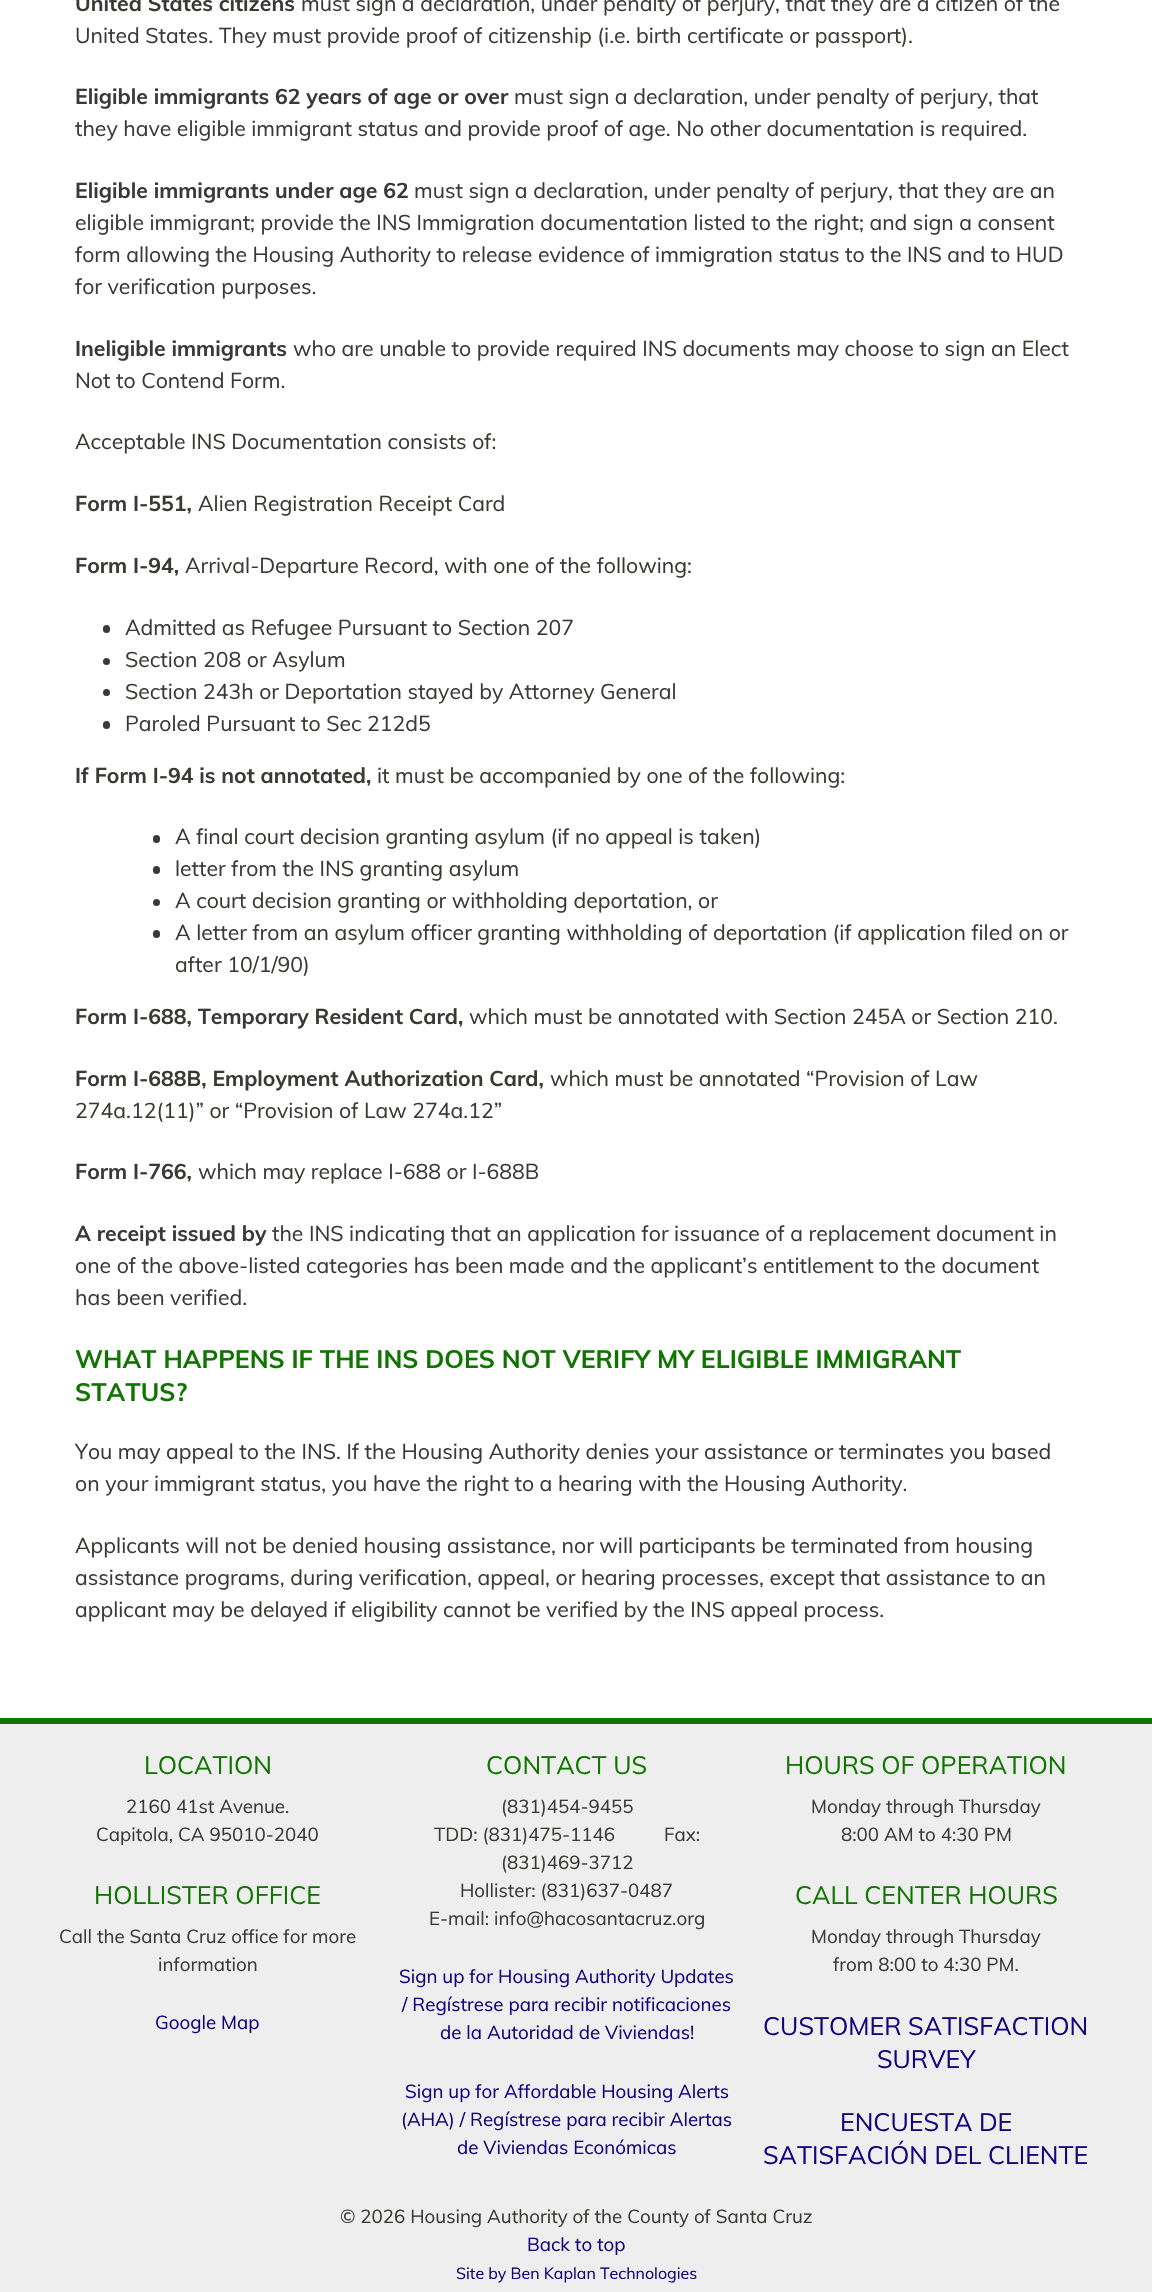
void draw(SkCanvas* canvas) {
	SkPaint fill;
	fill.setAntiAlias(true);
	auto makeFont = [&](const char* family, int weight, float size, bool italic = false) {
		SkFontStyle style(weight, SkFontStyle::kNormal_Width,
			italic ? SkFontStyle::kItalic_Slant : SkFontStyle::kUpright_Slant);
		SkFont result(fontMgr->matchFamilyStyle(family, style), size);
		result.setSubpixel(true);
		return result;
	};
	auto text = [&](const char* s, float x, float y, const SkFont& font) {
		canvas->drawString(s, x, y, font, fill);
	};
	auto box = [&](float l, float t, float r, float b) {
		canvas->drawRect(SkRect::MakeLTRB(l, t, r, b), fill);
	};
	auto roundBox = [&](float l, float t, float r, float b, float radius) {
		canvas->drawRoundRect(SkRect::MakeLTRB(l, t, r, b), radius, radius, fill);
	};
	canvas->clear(0xFFEEEEEE);
	fill.setColor(0xFFFFFFFF);
	box(0, 0, 1152, 1718);
	fill.setColor(0xFF383A35);
	roundBox(103, 625, 110, 633, 3.5f);
	canvas->drawCircle(106.5f, 661.5f, 3.5f, fill);
	canvas->drawCircle(106.5f, 692.5f, 3.5f, fill);
	roundBox(103, 721, 110, 729, 3.5f);
	roundBox(153, 835, 160, 843, 3.5f);
	roundBox(153, 866, 160, 874, 3.5f);
	canvas->drawCircle(156.5f, 902.5f, 3.5f, fill);
	roundBox(153, 930, 160, 938, 3.5f);
	fill.setColor(0xFF107500);
	box(0, 1718, 1152, 1724);
	auto font1 = makeFont("Muli", 700, 21.25f);
	fill.setColor(0xFF383A35);
	text("United States citizens", 75, 11, font1);
	auto font2 = makeFont("Muli", 400, 21.25f);
	text("must sign a declaration, under penalty of perjury, that they are a citizen of the", 301, 11, font2);
	text("United States. They must provide proof of citizenship (i.e. birth certificate or passport).", 75, 43, font2);
	text("Eligible immigrants 62 years of age or over", 75, 104, font1);
	text("must sign a declaration, under penalty of perjury, that", 514, 104, font2);
	text("they have eligible immigrant status and provide proof of age. No other documentation is required.", 75, 136, font2);
	text("Eligible immigrants under age 62", 75, 198, font1);
	text("must sign a declaration, under penalty of perjury, that they are an", 414, 198, font2);
	text("eligible immigrant; provide the INS Immigration documentation listed to the right; and sign a consent", 75, 230, font2);
	text("form allowing the Housing Authority to release evidence of immigration status to the INS and to HUD", 75, 262, font2);
	text("for verification purposes.", 75, 294, font2);
	text("Ineligible immigrants", 75, 356, font1);
	text("who are unable to provide required INS documents may choose to sign an Elect", 293, 356, font2);
	text("Not to Contend Form.", 75, 388, font2);
	text("Acceptable INS Documentation consists of:", 75, 449, font2);
	text("Form I-551,", 75, 511, font1);
	text("Alien Registration Receipt Card", 198, 511, font2);
	text("Form I-94,", 75, 573, font1);
	text("Arrival-Departure Record, with one of the following:", 185, 573, font2);
	text("Admitted as Refugee Pursuant to Section 207", 125, 635, font2);
	text("Section 208 or Asylum", 125, 667, font2);
	text("Section 243h or Deportation stayed by Attorney General", 125, 699, font2);
	text("Paroled Pursuant to Sec 212d5", 125, 731, font2);
	text("If Form I-94 is not annotated,", 75, 783, font1);
	text("it must be accompanied by one of the following:", 377, 783, font2);
	text("A final court decision granting asylum (if no appeal is taken)", 175, 844, font2);
	text("letter from the INS granting asylum", 175, 876, font2);
	text("A court decision granting or withholding deportation, or", 175, 908, font2);
	text("A letter from an asylum officer granting withholding of deportation (if application filed on or", 175, 940, font2);
	text("after 10/1/90)", 175, 972, font2);
	text("Form I-688, Temporary Resident Card,", 75, 1024, font1);
	text("which must be annotated with Section 245A or Section 210.", 469, 1024, font2);
	text("Form I-688B, Employment Authorization Card,", 75, 1086, font1);
	text("which must be annotated “Provision of Law", 550, 1086, font2);
	text("274a.12(11)” or “Provision of Law 274a.12”", 75, 1118, font2);
	text("Form I-766,", 75, 1179, font1);
	text("which may replace I-688 or I-688B", 198, 1179, font2);
	text("A receipt issued by", 75, 1241, font1);
	text("the INS indicating that an application for issuance of a replacement document in", 272, 1241, font2);
	text("one of the above-listed categories has been made and the applicant’s entitlement to the document", 75, 1273, font2);
	text("has been verified.", 75, 1305, font2);
	auto font3 = makeFont("Muli", 700, 25);
	fill.setColor(0xFF107500);
	text("WHAT HAPPENS IF THE INS DOES NOT VERIFY MY ELIGIBLE IMMIGRANT", 75, 1368, font3);
	text("STATUS?", 75, 1401, font3);
	fill.setColor(0xFF383A35);
	text("You may appeal to the INS. If the Housing Authority denies your assistance or terminates you based", 75, 1459, font2);
	text("on your immigrant status, you have the right to a hearing with the Housing Authority.", 75, 1491, font2);
	text("Applicants will not be denied housing assistance, nor will participants be terminated from housing", 75, 1553, font2);
	text("assistance programs, during verification, appeal, or hearing processes, except that assistance to an", 75, 1585, font2);
	text("applicant may be delayed if eligibility cannot be verified by the INS appeal process.", 75, 1617, font2);
	auto font4 = makeFont("Muli", 400, 25);
	fill.setColor(0xFF107500);
	text("LOCATION", 144, 1774, font4);
	auto font5 = makeFont("Muli", 400, 18.75f);
	fill.setColor(0xFF383A35);
	text("2160 41st Avenue.", 126, 1813, font5);
	text("Capitola, CA 95010-2040", 96, 1841, font5);
	fill.setColor(0xFF107500);
	text("HOLLISTER OFFICE", 94, 1904, font4);
	fill.setColor(0xFF383A35);
	text("Call the Santa Cruz office for more", 59, 1943, font5);
	text("information", 158, 1971, font5);
	fill.setColor(0xFF15007F);
	text("Google Map", 155, 2029, font5);
	fill.setColor(0xFF107500);
	text("CONTACT US", 486, 1774, font4);
	fill.setColor(0xFF383A35);
	text("(831)454-9455", 501, 1813, font5);
	text("TDD: (831)475-1146          Fax:", 434, 1841, font5);
	text("(831)469-3712", 501, 1869, font5);
	text("Hollister: (831)637-0487", 460, 1897, font5);
	text("E-mail: info@hacosantacruz.org", 429, 1925, font5);
	fill.setColor(0xFF15007F);
	text("Sign up for Housing Authority Updates", 399, 1983, font5);
	text("/ Regístrese para recibir notificaciones", 402, 2011, font5);
	text("de la Autoridad de Viviendas!", 440, 2039, font5);
	text("Sign up for Affordable Housing Alerts", 405, 2098, font5);
	text("(AHA) / Regístrese para recibir Alertas", 401, 2126, font5);
	text("de Viviendas Económicas", 457, 2154, font5);
	fill.setColor(0xFF107500);
	text("HOURS OF OPERATION", 785, 1774, font4);
	fill.setColor(0xFF383A35);
	text("Monday through Thursday", 811, 1813, font5);
	text("8:00 AM to 4:30 PM", 841, 1841, font5);
	fill.setColor(0xFF107500);
	text("CALL CENTER HOURS", 795, 1904, font4);
	fill.setColor(0xFF383A35);
	text("Monday through Thursday", 811, 1943, font5);
	text("from 8:00 to 4:30 PM.", 833, 1971, font5);
	fill.setColor(0xFF15007F);
	text("CUSTOMER SATISFACTION", 763, 2035, font4);
	text("SURVEY", 877, 2068, font4);
	text("ENCUESTA DE", 840, 2131, font4);
	text("SATISFACIÓN DEL CLIENTE", 763, 2164, font4);
	fill.setColor(0xFF383A35);
	text("© 2026 Housing Authority of the County of Santa Cruz", 340, 2223, font5);
	fill.setColor(0xFF15007F);
	text("Back to top", 527, 2251, font5);
	auto font6 = makeFont("Muli", 400, 16);
	text("Site by Ben Kaplan Technologies", 456, 2279, font6);
}
